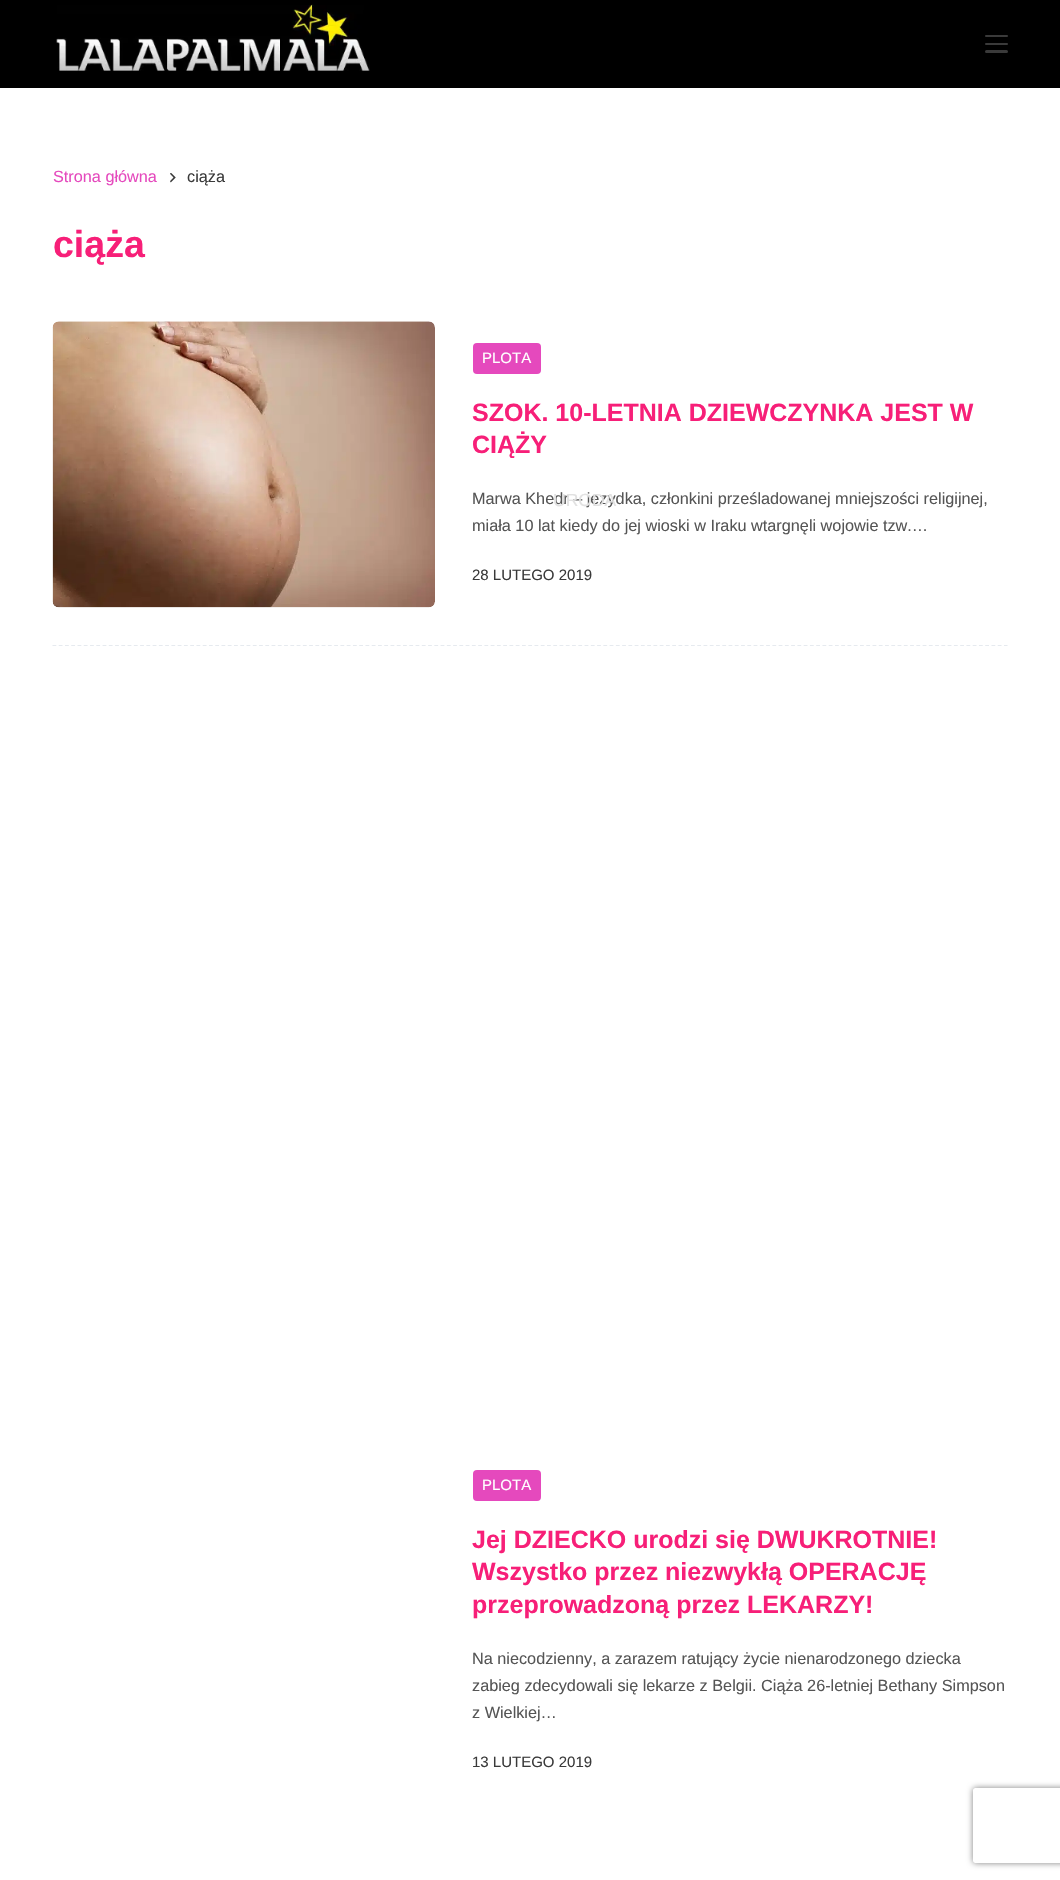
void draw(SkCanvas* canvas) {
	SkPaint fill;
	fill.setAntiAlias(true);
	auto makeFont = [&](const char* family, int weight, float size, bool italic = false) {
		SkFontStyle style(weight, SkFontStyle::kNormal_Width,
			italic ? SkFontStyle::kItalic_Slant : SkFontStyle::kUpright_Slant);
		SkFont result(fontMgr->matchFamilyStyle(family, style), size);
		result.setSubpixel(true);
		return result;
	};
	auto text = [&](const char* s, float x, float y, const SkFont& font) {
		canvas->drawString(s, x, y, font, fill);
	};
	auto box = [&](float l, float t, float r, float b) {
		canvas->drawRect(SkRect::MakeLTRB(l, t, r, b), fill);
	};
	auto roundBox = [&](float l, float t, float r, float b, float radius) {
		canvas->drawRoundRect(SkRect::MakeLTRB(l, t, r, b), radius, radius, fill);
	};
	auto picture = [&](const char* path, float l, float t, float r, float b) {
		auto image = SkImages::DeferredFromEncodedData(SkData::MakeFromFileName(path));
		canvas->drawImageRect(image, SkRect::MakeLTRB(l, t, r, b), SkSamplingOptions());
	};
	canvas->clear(0xFFFFFFFF);
	fill.setColor(0xFF000000);
	box(0, 0, 1060, 88);
	picture("image0.png", 56, 4, 370, 71);
	fill.setColor(0xFF3A3A3A);
	roundBox(985, 35, 1008, 37, 1);
	roundBox(985, 43, 1008, 45, 1);
	roundBox(985, 50, 1008, 53, 1.5f);
	picture("image1.png", 170, 173, 176, 183);
	fill.setStyle(SkPaint::kStroke_Style);
	fill.setStrokeWidth(1.2f);
	fill.setColor(0xFFE6EAEF);
	fill.setPathEffect(SkDashPathEffect::Make({{3.75f, 2.51f}}, 0));
	canvas->drawPath(SkPathBuilder().moveTo(52.5f, 645.5f).lineTo(1007.5f, 645.5f).detach(), fill);
	fill.setPathEffect(nullptr);
	picture("image2.png", 52, 321, 435, 608);
	fill.setStyle(SkPaint::kFill_Style);
	fill.setColor(0xFFE549BD);
	roundBox(473, 343, 541, 374, 4);
	roundBox(473, 1470, 541, 1501, 4);
	canvas->save();
	canvas->clipPath(SkPathBuilder(SkPathFillType::kEvenOdd).moveTo(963, 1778).lineTo(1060, 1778).lineTo(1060, 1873).lineTo(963, 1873).close().moveTo(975.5f, 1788).lineTo(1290.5f, 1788).cubicTo(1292, 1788, 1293, 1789, 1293, 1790.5f).lineTo(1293, 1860.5f).cubicTo(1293, 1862, 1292, 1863, 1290.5f, 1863).lineTo(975.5f, 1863).cubicTo(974, 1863, 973, 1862, 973, 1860.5f).lineTo(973, 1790.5f).cubicTo(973, 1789, 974, 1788, 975.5f, 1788).close().detach(), true);
	fill.setColor(0xFF808080);
	fill.setMaskFilter(SkMaskFilter::MakeBlur(kNormal_SkBlurStyle, 3));
	canvas->drawRoundRect(SkRect::MakeLTRB(973, 1788, 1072, 1863), 2.5f, 2.5f, fill);
	fill.setMaskFilter(nullptr);
	canvas->restore();
	auto font1 = makeFont("Liberation Sans", 400, 16.25f);
	fill.setColor(0xFFE549BD);
	text("Strona główna", 53, 182, font1);
	fill.setColor(0xFF3A3A3A);
	text("ciąża", 187, 182, font1);
	auto font2 = makeFont("Liberation Sans", 700, 37.5f);
	fill.setColor(0xFFF71F78);
	text("ciąża", 53, 257, font2);
	auto font3 = makeFont("Liberation Sans", 400, 15);
	fill.setColor(0xFFFFFFFF);
	text("PLOTA", 482, 363, font3);
	auto font4 = makeFont("Liberation Sans", 700, 25);
	fill.setColor(0xFFF71F78);
	text("SZOK. 10-LETNIA DZIEWCZYNKA JEST W", 472, 421, font4);
	text("CIĄŻY", 472, 453, font4);
	fill.setColor(0xFF555555);
	text("Marwa Khedr – jezydka, członkini prześladowanej mniejszości religijnej,", 472, 504, font1);
	text("miała 10 lat kiedy do jej wioski w Iraku wtargnęli wojowie tzw.…", 472, 531, font1);
	fill.setColor(0xFF3A3A3A);
	text("28 LUTEGO 2019", 472, 580, font3);
	fill.setColor(0xFFFFFFFF);
	text("PLOTA", 482, 1490, font3);
	fill.setColor(0xFFF71F78);
	text("Jej DZIECKO urodzi się DWUKROTNIE!", 472, 1548, font4);
	text("Wszystko przez niezwykłą OPERACJĘ", 472, 1580, font4);
	text("przeprowadzoną przez LEKARZY!", 472, 1613, font4);
	fill.setColor(0xFF555555);
	text("Na niecodzienny, a zarazem ratujący życie nienarodzonego dziecka", 472, 1664, font1);
	text("zabieg zdecydowali się lekarze z Belgii. Ciąża 26-letniej Bethany Simpson", 472, 1691, font1);
	text("z Wielkiej…", 472, 1718, font1);
	fill.setColor(0xFF3A3A3A);
	text("13 LUTEGO 2019", 472, 1767, font3);
	auto font5 = makeFont("Liberation Sans", 400, 17.5f);
	fill.setColor(0xFFE1E1E1);
	text("URODA", 553, 506, font5);
}
